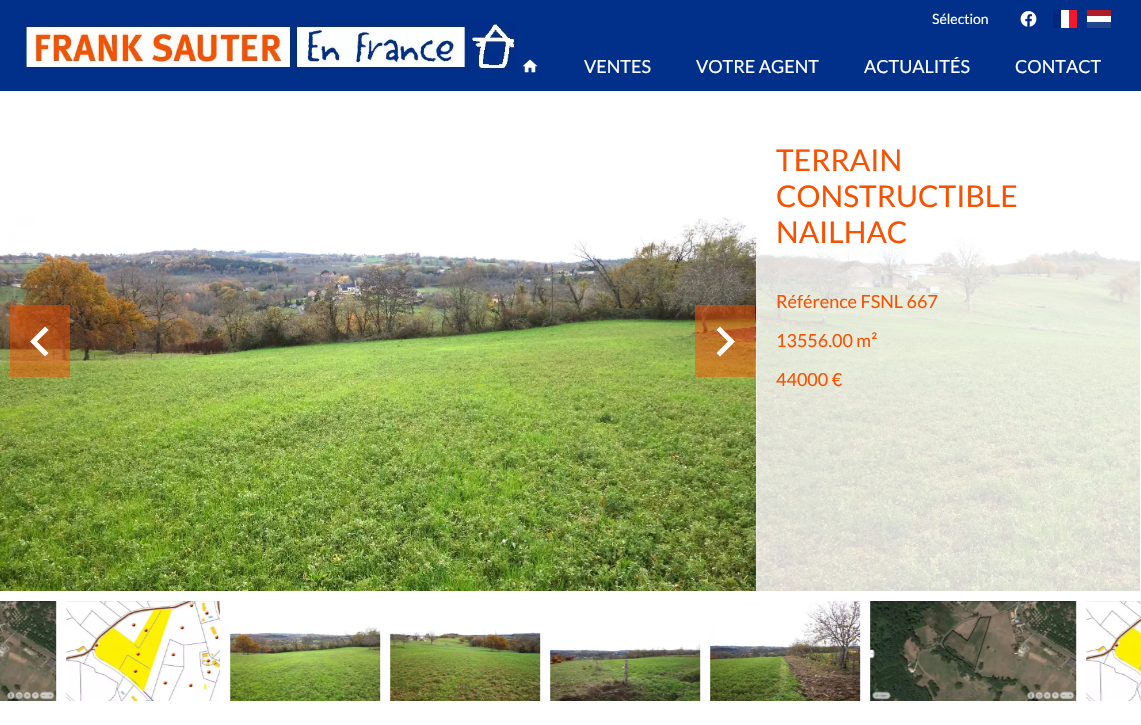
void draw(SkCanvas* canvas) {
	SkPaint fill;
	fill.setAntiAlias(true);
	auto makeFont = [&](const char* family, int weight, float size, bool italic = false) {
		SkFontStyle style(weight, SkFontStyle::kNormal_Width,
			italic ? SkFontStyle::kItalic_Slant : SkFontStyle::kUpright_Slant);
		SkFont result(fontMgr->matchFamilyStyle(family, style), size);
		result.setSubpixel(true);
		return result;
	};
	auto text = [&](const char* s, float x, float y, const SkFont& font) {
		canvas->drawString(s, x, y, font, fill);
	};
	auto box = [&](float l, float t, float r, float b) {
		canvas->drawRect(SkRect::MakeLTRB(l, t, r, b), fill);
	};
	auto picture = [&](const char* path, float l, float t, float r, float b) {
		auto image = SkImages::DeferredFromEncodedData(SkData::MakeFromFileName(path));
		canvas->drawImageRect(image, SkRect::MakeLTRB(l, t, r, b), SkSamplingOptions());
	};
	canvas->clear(0xFFFFFFFF);
	fill.setColor(0xFF003089);
	box(0, 0, 1141, 91);
	picture("image0.png", 1020, 11, 1037, 27);
	fill.setColor(0xFFFFFFFF);
	box(1061, 10, 1069, 28);
	fill.setColor(0xFF00267F);
	box(1053, 10, 1061, 28);
	fill.setColor(0xFFF31830);
	box(1069, 10, 1077, 28);
	fill.setColor(0xFFFFFFFF);
	box(1087, 16, 1111, 22);
	fill.setColor(0xFF21468B);
	box(1087, 22, 1111, 28);
	fill.setColor(0xFFAE1C28);
	box(1087, 10, 1111, 16);
	picture("image1.png", 21, 20, 516, 72);
	picture("image2.png", 522, 59, 538, 73);
	picture("image3.png", 0, 216, 757, 591);
	picture("image4.png", 757, 233, 1140, 591);
	fill.setColor(0xCCFFFFFF);
	box(756, 233, 1140, 591);
	fill.setColor(0x80F75202);
	box(10, 305, 70, 377);
	fill.setColor(0xFFFFFFFF);
	canvas->drawPath(SkPathBuilder().moveTo(48.5f, 353).lineTo(37, 341.5f).lineTo(48.5f, 330).lineTo(45, 326.5f).lineTo(30, 341.5f).lineTo(45, 356.5f).close().detach(), fill);
	fill.setColor(0x80F75202);
	box(695, 305, 755, 377);
	fill.setColor(0xFFFFFFFF);
	canvas->drawPath(SkPathBuilder().moveTo(716.5f, 353).lineTo(728, 341.5f).lineTo(716.5f, 330).lineTo(720, 326.5f).lineTo(735, 341.5f).lineTo(720, 356.5f).close().detach(), fill);
	picture("image5.png", 0, 601, 57, 701);
	picture("image6.png", 66, 601, 220, 701);
	picture("image7.png", 230, 626, 381, 701);
	picture("image8.png", 390, 630, 541, 701);
	picture("image9.png", 550, 644, 701, 701);
	picture("image10.png", 710, 601, 861, 701);
	picture("image11.png", 870, 601, 1077, 701);
	picture("image12.png", 1086, 601, 1141, 701);
	auto font1 = makeFont("Lato", 400, 14);
	text("Sélection", 932, 24, font1);
	auto font2 = makeFont("Lato", 400, 18);
	text("VENTES", 584, 73, font2);
	text("VOTRE AGENT", 696, 73, font2);
	text("ACTUALITÉS", 864, 73, font2);
	text("CONTACT", 1015, 73, font2);
	auto font3 = makeFont("Lato", 400, 30);
	fill.setColor(0xFFF75202);
	text("TERRAIN", 776, 171, font3);
	text("CONSTRUCTIBLE", 776, 207, font3);
	text("NAILHAC", 776, 243, font3);
	text("Référence FSNL 667", 776, 308, font2);
	text("13556.00 m²", 776, 347, font2);
	text("44 000 €", 776, 386, font2);
}
